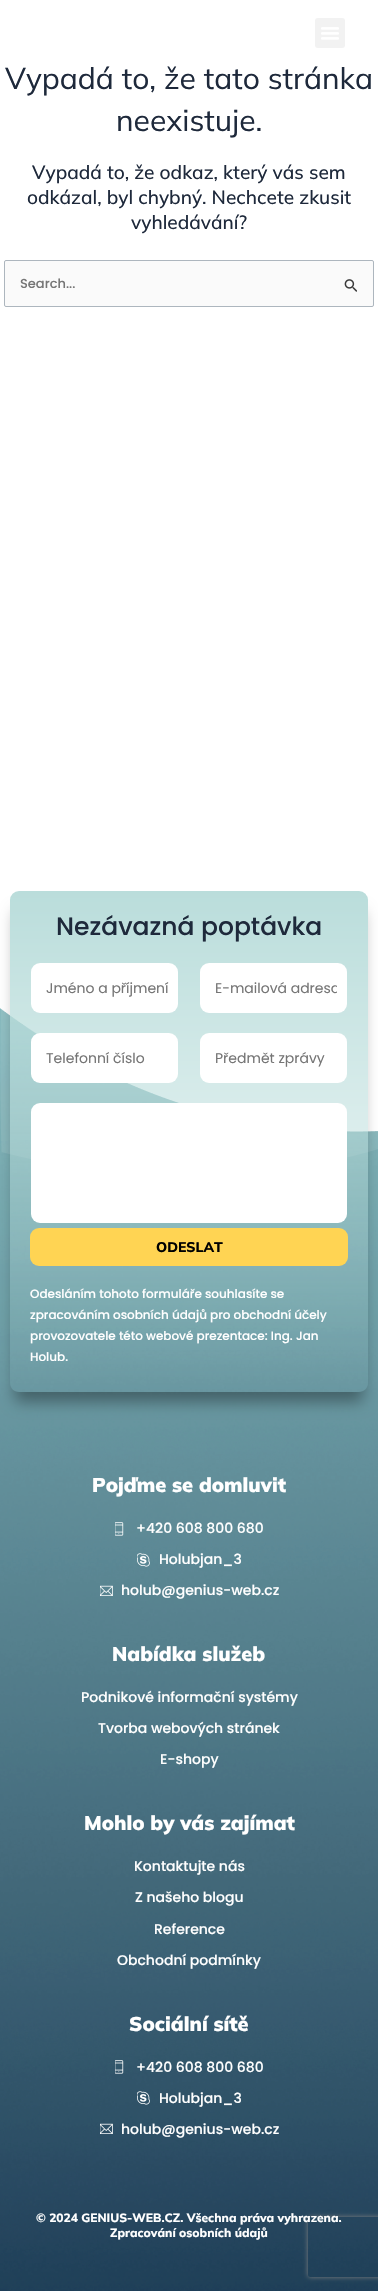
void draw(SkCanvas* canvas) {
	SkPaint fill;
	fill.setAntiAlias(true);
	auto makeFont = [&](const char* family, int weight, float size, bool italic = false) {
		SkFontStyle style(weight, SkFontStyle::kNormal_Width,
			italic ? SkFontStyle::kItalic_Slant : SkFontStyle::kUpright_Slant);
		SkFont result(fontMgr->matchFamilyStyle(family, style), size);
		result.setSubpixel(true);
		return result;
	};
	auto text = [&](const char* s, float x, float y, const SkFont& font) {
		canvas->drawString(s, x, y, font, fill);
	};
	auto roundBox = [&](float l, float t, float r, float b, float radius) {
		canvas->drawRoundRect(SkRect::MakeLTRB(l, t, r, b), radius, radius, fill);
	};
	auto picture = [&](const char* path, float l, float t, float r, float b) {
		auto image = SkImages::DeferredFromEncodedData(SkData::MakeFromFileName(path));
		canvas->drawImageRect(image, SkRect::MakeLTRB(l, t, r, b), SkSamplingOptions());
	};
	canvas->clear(0xFFFFFFFF);
	fill.setColor(0xFFF2F2F2);
	roundBox(315, 18, 345, 48, 3);
	picture("image0.png", 321, 27, 339, 40);
	fill.setColor(0xFFFAFAFA);
	canvas->drawRoundRect(SkRect::MakeLTRB(4.5f, 260.5f, 373.5f, 306.5f), 1.5f, 1.5f, fill);
	fill.setStyle(SkPaint::kStroke_Style);
	fill.setStrokeWidth(1);
	fill.setColor(0xFFADB6BE);
	canvas->drawRoundRect(SkRect::MakeLTRB(4.5f, 260.5f, 373.5f, 306.5f), 1.5f, 1.5f, fill);
	picture("image1.png", 344, 279, 357, 292);
	picture("image3.png", 0, 1008, 378, 2291);
	picture("image2.png", 0, 972, 378, 1159);
	canvas->save();
	canvas->clipPath(SkPathBuilder(SkPathFillType::kEvenOdd).moveTo(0, 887).lineTo(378, 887).lineTo(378, 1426).lineTo(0, 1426).close().moveTo(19, 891).lineTo(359, 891).cubicTo(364, 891, 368, 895, 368, 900).lineTo(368, 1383).cubicTo(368, 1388, 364, 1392, 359, 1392).lineTo(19, 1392).cubicTo(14, 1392, 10, 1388, 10, 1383).lineTo(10, 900).cubicTo(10, 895, 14, 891, 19, 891).close().detach(), true);
	fill.setStyle(SkPaint::kFill_Style);
	fill.setColor(0x59000000);
	fill.setMaskFilter(SkMaskFilter::MakeBlur(kNormal_SkBlurStyle, 7.5f));
	canvas->drawRoundRect(SkRect::MakeLTRB(15, 911, 363, 1402), 4, 4, fill);
	fill.setMaskFilter(nullptr);
	canvas->restore();
	{
		const SkColor colors[] = {0xFFBADDDB, 0x00BADDDB};
		const float stops[] = {0, 1};
		const SkPoint ends[] = {{189, 891}, {189, 1392}};
		fill.setShader(SkGradientShader::MakeLinear(ends, colors, stops, 2, SkTileMode::kClamp));
		fill.setAlpha(255);
	}
	roundBox(10, 891, 368, 1392, 9);
	fill.setShader(nullptr);
	fill.setColor(0xFFFFFFFF);
	roundBox(31, 963, 178, 1013, 9);
	roundBox(200, 963, 347, 1013, 9);
	roundBox(31, 1033, 178, 1083, 9);
	roundBox(200, 1033, 347, 1083, 9);
	roundBox(31, 1103, 347, 1223, 9);
	fill.setColor(0xFFFFD453);
	roundBox(30, 1228, 348, 1266, 9);
	picture("image4.png", 115, 1522, 124, 1536);
	picture("image5.png", 137, 1553, 150, 1567);
	picture("image6.png", 100, 1585, 113, 1596);
	picture("image7.png", 115, 2060, 124, 2074);
	picture("image8.png", 137, 2091, 150, 2105);
	picture("image9.png", 100, 2123, 113, 2134);
	canvas->save();
	canvas->clipPath(SkPathBuilder(SkPathFillType::kEvenOdd).moveTo(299, 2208).lineTo(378, 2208).lineTo(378, 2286).lineTo(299, 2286).close().moveTo(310, 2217).lineTo(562, 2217).cubicTo(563, 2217, 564, 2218, 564, 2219).lineTo(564, 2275).cubicTo(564, 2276, 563, 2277, 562, 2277).lineTo(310, 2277).cubicTo(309, 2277, 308, 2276, 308, 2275).lineTo(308, 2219).cubicTo(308, 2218, 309, 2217, 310, 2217).close().detach(), true);
	fill.setColor(0xFF808080);
	fill.setMaskFilter(SkMaskFilter::MakeBlur(kNormal_SkBlurStyle, 2.5f));
	canvas->drawRoundRect(SkRect::MakeLTRB(308, 2217, 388, 2277), 2, 2, fill);
	fill.setMaskFilter(nullptr);
	canvas->restore();
	auto font1 = makeFont("Mulish", 400, 30);
	fill.setColor(0xFF1E293B);
	text("Vypadá to, že tato stránka", 5, 89, font1);
	text("neexistuje.", 116, 131, font1);
	auto font2 = makeFont("Mulish", 500, 19.1f);
	text("Vypadá to, že odkaz, který vás sem", 32, 179, font2);
	text("odkázal, byl chybný. Nechcete zkusit", 27, 204, font2);
	text("vyhledávání?", 131, 229, font2);
	auto font3 = makeFont("Poppins", 500, 13);
	fill.setColor(0xFF757575);
	text("Search...", 20, 288, font3);
	auto font4 = makeFont("Poppins", 500, 25);
	fill.setColor(0xFF1E293B);
	text("Nezávazná poptávka", 56, 935, font4);
	auto font5 = makeFont("Poppins", 400, 14);
	fill.setColor(0xFF757575);
	text("Jméno a příjmení", 46, 993, font5);
	canvas->save();
	canvas->clipRect(SkRect::MakeLTRB(211, 978, 337, 999));
	text("E-mailová adresa", 215, 993, font5);
	canvas->restore();
	text("Telefonní číslo", 46, 1063, font5);
	text("Předmět zprávy", 215, 1063, font5);
	auto font6 = makeFont("Mulish", 800, 14);
	fill.setColor(0xFF000000);
	text("ODESLAT", 156, 1252, font6);
	auto font7 = makeFont("Poppins", 500, 12);
	fill.setColor(0xFFFFFFFF);
	text("Odesláním tohoto formuláře souhlasíte se", 30, 1298, font7);
	text("zpracováním osobních údajů pro obchodní účely", 30, 1319, font7);
	text("provozovatele této webové prezentace: Ing. Jan", 30, 1340, font7);
	text("Holub.", 30, 1361, font7);
	auto font8 = makeFont("Mulish", 900, 20);
	text("Pojďme se domluvit", 92, 1492, font8);
	auto font9 = makeFont("Poppins", 500, 14);
	text("+420 608 800 680", 136, 1533, font9);
	text("Holubjan_3", 159, 1564, font9);
	text("holub@genius-web.cz", 121, 1595, font9);
	text("Nabídka služeb", 112, 1661, font8);
	text("Podnikové informační systémy", 81, 1702, font9);
	text("Tvorba webových stránek", 98, 1733, font9);
	text("E-shopy", 160, 1764, font9);
	text("Mohlo by vás zajímat", 84, 1830, font8);
	text("Kontaktujte nás", 134, 1871, font9);
	text("Z našeho blogu", 135, 1902, font9);
	text("Reference", 154, 1934, font9);
	text("Obchodní podmínky", 117, 1965, font9);
	text("Sociální sítě", 129, 2031, font8);
	text("+420 608 800 680", 136, 2072, font9);
	text("Holubjan_3", 159, 2103, font9);
	text("holub@genius-web.cz", 121, 2134, font9);
	auto font10 = makeFont("Mulish", 800, 12);
	text("© 2024 GENIUS-WEB.CZ. Všechna práva vyhrazena.", 36, 2222, font10);
	text("Zpracování osobních údajů", 110, 2237, font10);
}
